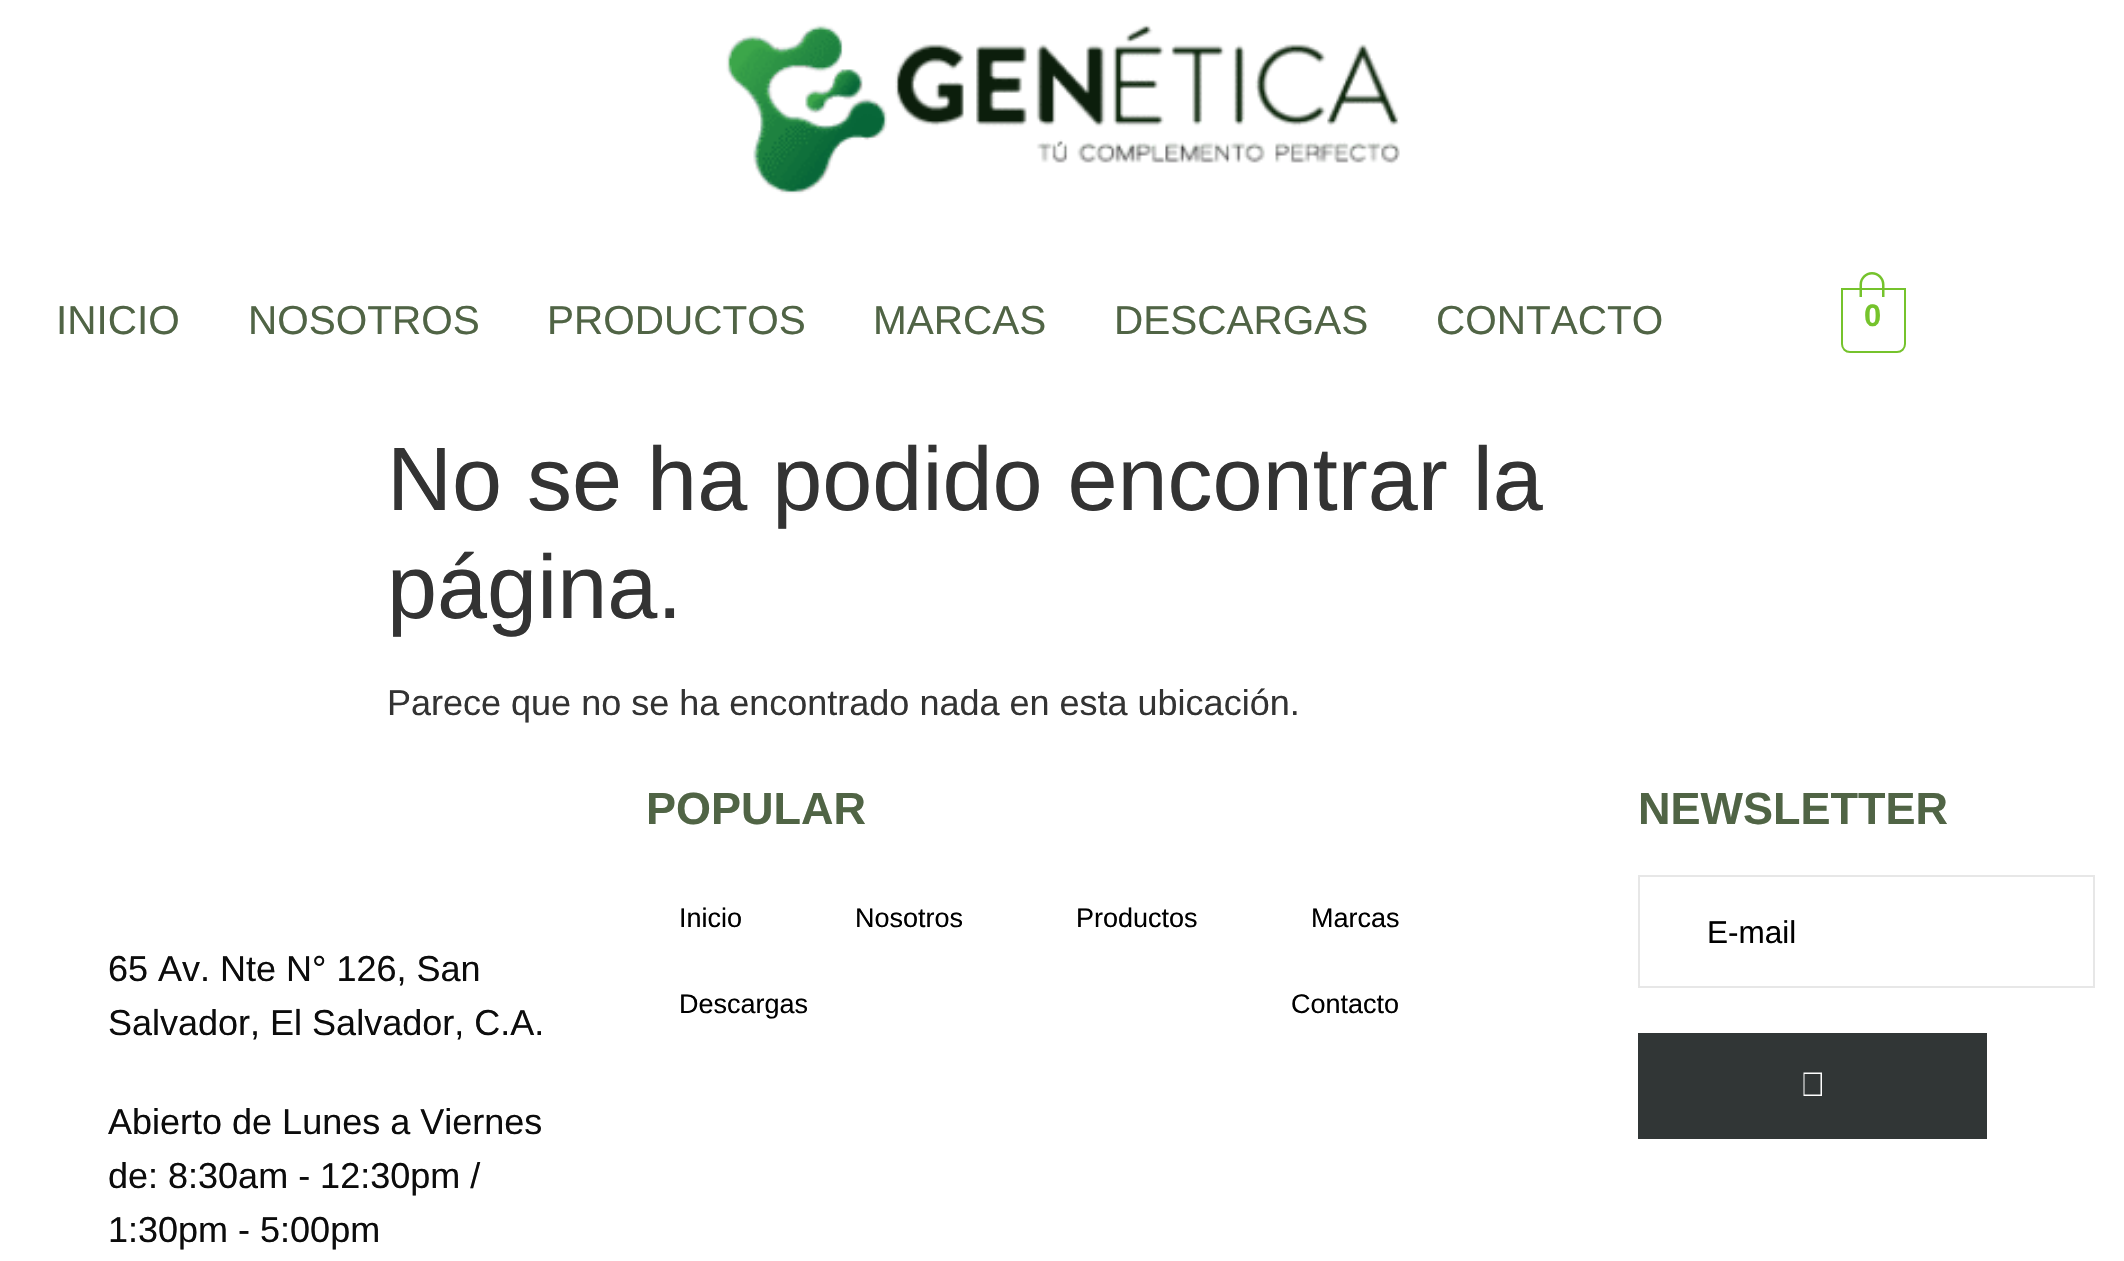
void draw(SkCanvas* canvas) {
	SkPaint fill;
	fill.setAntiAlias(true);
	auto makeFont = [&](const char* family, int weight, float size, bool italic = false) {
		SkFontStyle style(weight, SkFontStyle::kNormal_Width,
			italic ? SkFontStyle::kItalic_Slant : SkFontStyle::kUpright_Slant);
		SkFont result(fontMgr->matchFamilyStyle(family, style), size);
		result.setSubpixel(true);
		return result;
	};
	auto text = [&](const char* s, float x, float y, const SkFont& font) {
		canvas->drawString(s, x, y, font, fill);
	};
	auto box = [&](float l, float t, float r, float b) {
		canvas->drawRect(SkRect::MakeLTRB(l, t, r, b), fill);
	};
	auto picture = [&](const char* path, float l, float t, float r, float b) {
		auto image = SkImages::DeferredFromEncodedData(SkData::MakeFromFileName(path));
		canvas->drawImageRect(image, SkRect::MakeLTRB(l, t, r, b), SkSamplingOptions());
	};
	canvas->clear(0xFFFFFFFF);
	picture("image0.png", 726, 24, 1400, 194);
	fill.setStyle(SkPaint::kStroke_Style);
	fill.setStrokeWidth(2);
	fill.setColor(0xFF75C32C);
	canvas->drawPath(SkPathBuilder().moveTo(1842, 289).lineTo(1905, 289).lineTo(1905, 344).cubicTo(1905, 348.5f, 1901.5f, 352, 1897, 352).lineTo(1850, 352).cubicTo(1845.5f, 352, 1842, 348.5f, 1842, 344).close().detach(), fill);
	fill.setStyle(SkPaint::kFill_Style);
	canvas->drawPath(SkPathBuilder(SkPathFillType::kEvenOdd).moveTo(1872, 272).cubicTo(1879, 272, 1884.5f, 278, 1884.5f, 284.5f).lineTo(1884.5f, 297).lineTo(1859.5f, 297).lineTo(1859.5f, 284.5f).cubicTo(1859.5f, 278, 1865, 272, 1872, 272).close().moveTo(1872, 274.5f).cubicTo(1877.5f, 274.5f, 1882, 279, 1882, 284.5f).lineTo(1882, 297).lineTo(1862, 297).lineTo(1862, 284.5f).cubicTo(1862, 279, 1866.5f, 274.5f, 1872, 274.5f).close().detach(), fill);
	fill.setStyle(SkPaint::kStroke_Style);
	fill.setColor(0xFFE7E7E7);
	canvas->drawRect(SkRect::MakeLTRB(1639, 876, 2094, 987), fill);
	fill.setStyle(SkPaint::kFill_Style);
	fill.setColor(0xFF313636);
	box(1638, 1033, 1987, 1139);
	fill.setColor(0xFFFFFFFF);
	canvas->drawPath(SkPathBuilder().moveTo(1803.5f, 1072.5f).lineTo(1822, 1072.5f).lineTo(1822, 1096).lineTo(1803.5f, 1096).close().moveTo(1804.5f, 1074).lineTo(1804.5f, 1094.5f).lineTo(1820.5f, 1094.5f).lineTo(1820.5f, 1074).close().detach(), fill);
	auto font1 = makeFont("Liberation Sans", 400, 40.5f);
	fill.setColor(0xFF506445);
	text("INICIO", 56, 334, font1);
	text("NOSOTROS", 248, 334, font1);
	text("PRODUCTOS", 547, 334, font1);
	text("MARCAS", 873, 334, font1);
	text("DESCARGAS", 1114, 334, font1);
	text("CONTACTO", 1436, 334, font1);
	auto font2 = makeFont("Liberation Sans", 700, 31);
	fill.setColor(0xFF75C32C);
	text("0", 1864, 326, font2);
	auto font3 = makeFont("Liberation Sans", 400, 90);
	fill.setColor(0xFF333333);
	text("No se ha podido encontrar la", 387, 510, font3);
	text("página.", 387, 618, font3);
	auto font4 = makeFont("Liberation Sans", 400, 36);
	text("Parece que no se ha encontrado nada en esta ubicación.", 387, 715, font4);
	auto font5 = makeFont("Liberation Sans", 700, 45);
	fill.setColor(0xFF506445);
	text("POPULAR", 646, 824, font5);
	auto font6 = makeFont("Liberation Sans", 400, 27);
	fill.setColor(0xFF000000);
	text("Inicio", 679, 927, font6);
	text("Nosotros", 855, 927, font6);
	text("Productos", 1076, 927, font6);
	text("Marcas", 1311, 927, font6);
	text("Descargas", 679, 1013, font6);
	text("Contacto", 1291, 1013, font6);
	fill.setColor(0xFF506445);
	text("NEWSLETTER", 1638, 824, font5);
	auto font7 = makeFont("Liberation Sans", 400, 31.5f);
	fill.setColor(0xFF000000);
	text("E-mail", 1707, 943, font7);
	fill.setColor(0xFF0C0C0C);
	text("65 Av. Nte N° 126, San", 108, 981, font4);
	text("Salvador, El Salvador, C.A.", 108, 1035, font4);
	text("Abierto de Lunes a Viernes", 108, 1134, font4);
	text("de: 8:30am - 12:30pm /", 108, 1188, font4);
	text("1:30pm - 5:00pm", 108, 1242, font4);
}
